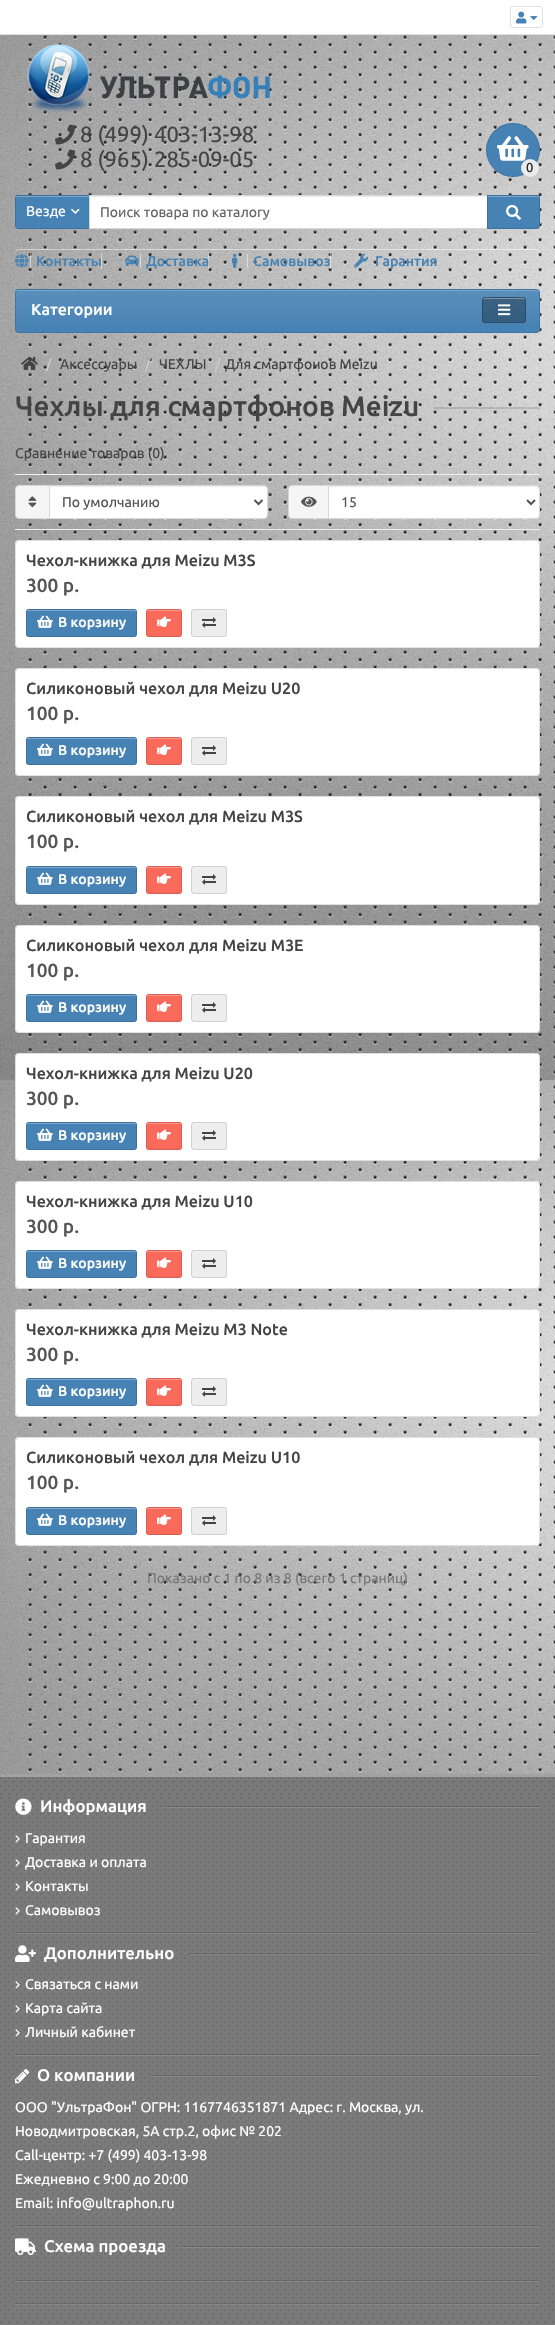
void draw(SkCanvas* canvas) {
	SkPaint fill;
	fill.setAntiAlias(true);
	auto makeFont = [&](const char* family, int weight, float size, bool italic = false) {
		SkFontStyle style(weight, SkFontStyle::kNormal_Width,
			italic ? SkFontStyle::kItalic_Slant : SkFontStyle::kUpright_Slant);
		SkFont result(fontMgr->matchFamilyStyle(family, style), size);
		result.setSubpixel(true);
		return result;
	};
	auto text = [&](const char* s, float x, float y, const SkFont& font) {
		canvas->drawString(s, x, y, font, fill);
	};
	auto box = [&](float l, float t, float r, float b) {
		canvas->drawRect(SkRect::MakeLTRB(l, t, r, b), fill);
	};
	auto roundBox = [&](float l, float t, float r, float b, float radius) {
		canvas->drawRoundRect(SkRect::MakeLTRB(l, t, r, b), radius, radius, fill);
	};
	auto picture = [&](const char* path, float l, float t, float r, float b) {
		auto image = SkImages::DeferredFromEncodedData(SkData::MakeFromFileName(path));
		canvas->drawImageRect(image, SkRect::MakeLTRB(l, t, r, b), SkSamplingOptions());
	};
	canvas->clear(0xFFFFFFFF);
	picture("image0.png", 0, 35, 555, 1774);
	fill.setColor(0xFFE0E0E0);
	box(0, 34, 555, 35);
	fill.setStyle(SkPaint::kStroke_Style);
	fill.setStrokeWidth(1);
	canvas->drawRoundRect(SkRect::MakeLTRB(510.5f, 6.5f, 542.5f, 27.5f), 2.5f, 2.5f, fill);
	picture("image1.png", 516, 11, 527, 24);
	picture("image2.png", 530, 16, 538, 20);
	picture("image3.png", 27, 44, 270, 113);
	picture("image4.png", 55, 124, 75, 145);
	picture("image5.png", 55, 149, 75, 170);
	fill.setStyle(SkPaint::kFill_Style);
	fill.setColor(0xFF4682B4);
	canvas->drawCircle(513, 150, 27, fill);
	fill.setStyle(SkPaint::kStroke_Style);
	fill.setColor(0x1F000000);
	canvas->drawCircle(513, 150, 26.5f, fill);
	picture("image6.png", 497, 136, 529, 161);
	fill.setStyle(SkPaint::kFill_Style);
	fill.setColor(0xFFEBEBEB);
	canvas->drawCircle(530, 168, 9, fill);
	fill.setColor(0xFF4682B4);
	canvas->drawPath(SkPathBuilder().moveTo(18, 195).lineTo(91, 195).lineTo(91, 229).lineTo(18, 229).cubicTo(16.5f, 229, 15, 227.5f, 15, 226).lineTo(15, 198).cubicTo(15, 196.5f, 16.5f, 195, 18, 195).close().detach(), fill);
	fill.setColor(0xFF7EA8CB);
	canvas->drawPath(SkPathBuilder().moveTo(18, 197).lineTo(90, 197).lineTo(90, 196).lineTo(18, 196).cubicTo(17, 196, 16, 197, 16, 198).lineTo(16, 199).cubicTo(16, 198, 17, 197, 18, 197).close().detach(), fill);
	fill.setStyle(SkPaint::kStroke_Style);
	fill.setColor(0x1F000000);
	canvas->drawPath(SkPathBuilder().moveTo(18, 195.5f).lineTo(90.5f, 195.5f).lineTo(90.5f, 228.5f).lineTo(18, 228.5f).cubicTo(16.5f, 228.5f, 15.5f, 227.5f, 15.5f, 226).lineTo(15.5f, 198).cubicTo(15.5f, 196.5f, 16.5f, 195.5f, 18, 195.5f).close().detach(), fill);
	picture("image7.png", 71, 208, 80, 214);
	fill.setStyle(SkPaint::kFill_Style);
	fill.setColor(0xFFFFFFFF);
	box(90, 197, 487, 228);
	fill.setColor(0xFFECECEC);
	box(90, 196, 487, 197);
	fill.setStyle(SkPaint::kStroke_Style);
	fill.setColor(0xFFD9D9D9);
	canvas->drawRect(SkRect::MakeLTRB(89.5f, 195.5f, 487.5f, 228.5f), fill);
	fill.setStyle(SkPaint::kFill_Style);
	fill.setColor(0xFF4682B4);
	canvas->drawPath(SkPathBuilder().moveTo(487, 195).lineTo(537, 195).cubicTo(538.5f, 195, 540, 196.5f, 540, 198).lineTo(540, 226).cubicTo(540, 227.5f, 538.5f, 229, 537, 229).lineTo(487, 229).close().detach(), fill);
	fill.setColor(0xFF7EA8CB);
	canvas->drawPath(SkPathBuilder().moveTo(488, 197).lineTo(537, 197).cubicTo(538, 197, 539, 198, 539, 199).lineTo(539, 198).cubicTo(539, 197, 538, 196, 537, 196).lineTo(488, 196).close().detach(), fill);
	fill.setStyle(SkPaint::kStroke_Style);
	fill.setColor(0x1F000000);
	canvas->drawPath(SkPathBuilder().moveTo(487.5f, 195.5f).lineTo(537, 195.5f).cubicTo(538.5f, 195.5f, 539.5f, 196.5f, 539.5f, 198).lineTo(539.5f, 226).cubicTo(539.5f, 227.5f, 538.5f, 228.5f, 537, 228.5f).lineTo(487.5f, 228.5f).close().detach(), fill);
	picture("image8.png", 506, 204, 521, 220);
	fill.setStyle(SkPaint::kFill_Style);
	fill.setColor(0x80FFFFFF);
	canvas->drawPath(SkPathBuilder().moveTo(19, 250).lineTo(536, 250).cubicTo(538, 250, 540, 252, 540, 254).lineTo(540, 253).cubicTo(540, 251, 538, 249, 536, 249).lineTo(19, 249).cubicTo(17, 249, 15, 251, 15, 253).lineTo(15, 254).cubicTo(15, 252, 17, 250, 19, 250).close().detach(), fill);
	box(30, 254, 31, 268);
	box(101, 253, 102, 269);
	picture("image9.png", 15, 254, 29, 268);
	box(140, 254, 141, 268);
	box(208, 253, 209, 269);
	picture("image10.png", 125, 255, 139, 266);
	box(247, 254, 248, 268);
	box(330, 253, 331, 269);
	picture("image11.png", 232, 253, 238, 268);
	picture("image12.png", 354, 253, 368, 268);
	fill.setColor(0xFF4682B4);
	roundBox(15, 289, 540, 333, 4);
	fill.setColor(0xFF6B9BC3);
	canvas->drawPath(SkPathBuilder().moveTo(19, 291).lineTo(536, 291).cubicTo(538, 291, 539, 292, 539, 294).lineTo(539, 292).lineTo(537, 290).lineTo(19, 290).cubicTo(17, 290, 16, 292, 16, 294).cubicTo(16, 292, 17, 291, 19, 291).close().detach(), fill);
	fill.setStyle(SkPaint::kStroke_Style);
	fill.setColor(0x1A000000);
	canvas->drawRoundRect(SkRect::MakeLTRB(15.5f, 289.5f, 539.5f, 332.5f), 3.5f, 3.5f, fill);
	fill.setStyle(SkPaint::kFill_Style);
	{
		const SkColor colors[] = {0x1AFFFFFF, 0x00FFFFFF};
		const float stops[] = {0, 1};
		const SkPoint ends[] = {{278, 290}, {278, 332}};
		fill.setShader(SkGradientShader::MakeLinear(ends, colors, stops, 2, SkTileMode::kClamp));
		fill.setAlpha(255);
	}
	box(16, 290, 539, 323);
	fill.setShader(nullptr);
	fill.setColor(0x4D000000);
	roundBox(482, 297, 526, 323, 3);
	fill.setColor(0xFF7691A8);
	canvas->drawPath(SkPathBuilder().moveTo(485, 299).lineTo(523, 299).cubicTo(524, 299, 525, 300, 525, 301).cubicTo(525, 296, 520, 298, 517, 298).lineTo(491, 298).cubicTo(488, 298, 483, 296, 483, 301).cubicTo(483, 300, 484, 299, 485, 299).close().detach(), fill);
	fill.setStyle(SkPaint::kStroke_Style);
	fill.setColor(0x33000000);
	canvas->drawRoundRect(SkRect::MakeLTRB(482.5f, 297.5f, 525.5f, 322.5f), 2.5f, 2.5f, fill);
	picture("image13.png", 498, 304, 511, 316);
	picture("image14.png", 21, 356, 38, 370);
	fill.setStyle(SkPaint::kFill_Style);
	fill.setColor(0x1F000000);
	box(434, 407, 540, 409);
	fill.setColor(0xFFEEEEEE);
	box(15, 474, 540, 475);
	fill.setColor(0xFFF5F5F5);
	canvas->drawPath(SkPathBuilder().moveTo(19, 485).lineTo(49, 485).lineTo(49, 519).lineTo(19, 519).cubicTo(17, 519, 15, 517, 15, 515).lineTo(15, 489).cubicTo(15, 487, 17, 485, 19, 485).close().detach(), fill);
	fill.setColor(0x1F000000);
	canvas->drawPath(SkPathBuilder(SkPathFillType::kEvenOdd).moveTo(19, 485).lineTo(49, 485).lineTo(49, 519).lineTo(19, 519).cubicTo(17, 519, 15, 517, 15, 515).lineTo(15, 489).cubicTo(15, 487, 17, 485, 19, 485).close().moveTo(19, 486).lineTo(49, 486).lineTo(49, 518).lineTo(19, 518).cubicTo(17.5f, 518, 16, 516.5f, 16, 515).lineTo(16, 489).cubicTo(16, 487.5f, 17.5f, 486, 19, 486).close().detach(), fill);
	picture("image15.png", 28, 496, 37, 508);
	fill.setColor(0xFFFFFFFF);
	canvas->drawPath(SkPathBuilder().moveTo(49, 485).lineTo(264, 485).cubicTo(266, 485, 268, 487, 268, 489).lineTo(268, 515).cubicTo(268, 517, 266, 519, 264, 519).lineTo(49, 519).close().detach(), fill);
	fill.setColor(0xFFECECEC);
	canvas->drawPath(SkPathBuilder().moveTo(50, 487).lineTo(264, 487).cubicTo(266, 487, 267, 488, 267, 490).lineTo(267, 489).cubicTo(267, 487, 266, 486, 264, 486).lineTo(50, 486).close().detach(), fill);
	fill.setStyle(SkPaint::kStroke_Style);
	fill.setColor(0x26000000);
	canvas->drawPath(SkPathBuilder().moveTo(49.5f, 485.5f).lineTo(264, 485.5f).cubicTo(266, 485.5f, 267.5f, 487, 267.5f, 489).lineTo(267.5f, 515).cubicTo(267.5f, 517, 266, 518.5f, 264, 518.5f).lineTo(49.5f, 518.5f).close().detach(), fill);
	fill.setStrokeWidth(2);
	fill.setColor(0xFF555555);
	canvas->drawPath(SkPathBuilder().moveTo(254.5f, 500).lineTo(258.5f, 504).lineTo(262.5f, 500).detach(), fill);
	fill.setStyle(SkPaint::kFill_Style);
	fill.setColor(0xFFF5F5F5);
	canvas->drawPath(SkPathBuilder().moveTo(292, 485).lineTo(328, 485).lineTo(328, 519).lineTo(292, 519).cubicTo(290, 519, 288, 517, 288, 515).lineTo(288, 489).cubicTo(288, 487, 290, 485, 292, 485).close().detach(), fill);
	fill.setColor(0x1F000000);
	canvas->drawPath(SkPathBuilder(SkPathFillType::kEvenOdd).moveTo(292, 485).lineTo(328, 485).lineTo(328, 519).lineTo(292, 519).cubicTo(290, 519, 288, 517, 288, 515).lineTo(288, 489).cubicTo(288, 487, 290, 485, 292, 485).close().moveTo(292, 486).lineTo(328, 486).lineTo(328, 518).lineTo(292, 518).cubicTo(290, 518, 289, 517, 289, 515).lineTo(289, 489).cubicTo(289, 487, 290, 486, 292, 486).close().detach(), fill);
	picture("image16.png", 301, 496, 317, 507);
	fill.setColor(0xFFFFFFFF);
	canvas->drawPath(SkPathBuilder().moveTo(328, 485).lineTo(536, 485).cubicTo(538, 485, 540, 487, 540, 489).lineTo(540, 515).cubicTo(540, 517, 538, 519, 536, 519).lineTo(328, 519).close().detach(), fill);
	fill.setColor(0xFFECECEC);
	canvas->drawPath(SkPathBuilder().moveTo(329, 487).lineTo(536, 487).cubicTo(538, 487, 539, 488, 539, 490).lineTo(539, 489).cubicTo(539, 487, 538, 486, 536, 486).lineTo(329, 486).close().detach(), fill);
	fill.setStyle(SkPaint::kStroke_Style);
	fill.setStrokeWidth(1);
	fill.setColor(0x26000000);
	canvas->drawPath(SkPathBuilder().moveTo(328.5f, 485.5f).lineTo(536, 485.5f).cubicTo(538, 485.5f, 539.5f, 487, 539.5f, 489).lineTo(539.5f, 515).cubicTo(539.5f, 517, 538, 518.5f, 536, 518.5f).lineTo(328.5f, 518.5f).close().detach(), fill);
	fill.setStrokeWidth(2);
	fill.setColor(0xFF555555);
	canvas->drawPath(SkPathBuilder().moveTo(527, 500).lineTo(531, 504).lineTo(535, 500).detach(), fill);
	fill.setStyle(SkPaint::kFill_Style);
	fill.setColor(0xFFEEEEEE);
	box(15, 529, 540, 530);
	fill.setColor(0xFFFFFFFF);
	roundBox(15, 540, 540, 648, 4);
	fill.setStyle(SkPaint::kStroke_Style);
	fill.setStrokeWidth(1);
	fill.setColor(0x1F000000);
	canvas->drawRoundRect(SkRect::MakeLTRB(15.5f, 540.5f, 539.5f, 647.5f), 3.5f, 3.5f, fill);
	fill.setStyle(SkPaint::kFill_Style);
	fill.setColor(0xFF4682B4);
	roundBox(26, 609, 137, 637, 3);
	fill.setColor(0xFF7EA8CB);
	canvas->drawPath(SkPathBuilder().moveTo(29, 611).lineTo(134, 611).cubicTo(135, 611, 136, 612, 136, 613).cubicTo(136, 612, 136, 610, 134, 610).lineTo(29, 610).cubicTo(27, 610, 27, 612, 27, 613).cubicTo(27, 612, 28, 611, 29, 611).close().detach(), fill);
	fill.setStyle(SkPaint::kStroke_Style);
	fill.setColor(0x1F000000);
	canvas->drawRoundRect(SkRect::MakeLTRB(26.5f, 609.5f, 136.5f, 636.5f), 2.5f, 2.5f, fill);
	picture("image17.png", 37, 615, 53, 628);
	fill.setStyle(SkPaint::kFill_Style);
	fill.setColor(0xFFFA6A5A);
	roundBox(146, 609, 182, 637, 3);
	fill.setColor(0xFFFC978C);
	canvas->drawPath(SkPathBuilder().moveTo(149, 611).lineTo(179, 611).cubicTo(180, 611, 181, 612, 181, 613).cubicTo(181, 608.5f, 178, 610, 174, 610).lineTo(154, 610).cubicTo(150, 610, 147, 608.5f, 147, 613).cubicTo(147, 612, 148, 611, 149, 611).close().detach(), fill);
	fill.setStyle(SkPaint::kStroke_Style);
	fill.setColor(0x1F000000);
	canvas->drawRoundRect(SkRect::MakeLTRB(146.5f, 609.5f, 181.5f, 636.5f), 2.5f, 2.5f, fill);
	picture("image18.png", 157, 616, 171, 627);
	fill.setStyle(SkPaint::kFill_Style);
	fill.setColor(0xFFEDEDED);
	roundBox(191, 609, 227, 637, 3);
	fill.setColor(0xFFF2F2F2);
	canvas->drawPath(SkPathBuilder().moveTo(194, 611).lineTo(224, 611).cubicTo(225, 611, 226, 612, 226, 613).cubicTo(226, 608.5f, 223, 610, 219, 610).lineTo(199, 610).cubicTo(195, 610, 192, 608.5f, 192, 613).cubicTo(192, 612, 193, 611, 194, 611).close().detach(), fill);
	fill.setStyle(SkPaint::kStroke_Style);
	fill.setColor(0x1F000000);
	canvas->drawRoundRect(SkRect::MakeLTRB(191.5f, 609.5f, 226.5f, 636.5f), 2.5f, 2.5f, fill);
	picture("image19.png", 202, 617, 216, 628);
	fill.setStyle(SkPaint::kFill_Style);
	fill.setColor(0xFFFFFFFF);
	roundBox(15, 668, 540, 776, 4);
	fill.setStyle(SkPaint::kStroke_Style);
	fill.setColor(0x1F000000);
	canvas->drawRoundRect(SkRect::MakeLTRB(15.5f, 668.5f, 539.5f, 775.5f), 3.5f, 3.5f, fill);
	fill.setStyle(SkPaint::kFill_Style);
	fill.setColor(0xFF4682B4);
	roundBox(26, 737, 137, 765, 3);
	fill.setColor(0xFF7EA8CB);
	canvas->drawPath(SkPathBuilder().moveTo(29, 739).lineTo(134, 739).cubicTo(135, 739, 136, 740, 136, 741).cubicTo(136, 740, 136, 738, 134, 738).lineTo(29, 738).cubicTo(27, 738, 27, 740, 27, 741).cubicTo(27, 740, 28, 739, 29, 739).close().detach(), fill);
	fill.setStyle(SkPaint::kStroke_Style);
	fill.setColor(0x1F000000);
	canvas->drawRoundRect(SkRect::MakeLTRB(26.5f, 737.5f, 136.5f, 764.5f), 2.5f, 2.5f, fill);
	picture("image17.png", 37, 743, 53, 756);
	fill.setStyle(SkPaint::kFill_Style);
	fill.setColor(0xFFFA6A5A);
	roundBox(146, 737, 182, 765, 3);
	fill.setColor(0xFFFC978C);
	canvas->drawPath(SkPathBuilder().moveTo(149, 739).lineTo(179, 739).cubicTo(180, 739, 181, 740, 181, 741).cubicTo(181, 736.5f, 178, 738, 174, 738).lineTo(154, 738).cubicTo(150, 738, 147, 736.5f, 147, 741).cubicTo(147, 740, 148, 739, 149, 739).close().detach(), fill);
	fill.setStyle(SkPaint::kStroke_Style);
	fill.setColor(0x1F000000);
	canvas->drawRoundRect(SkRect::MakeLTRB(146.5f, 737.5f, 181.5f, 764.5f), 2.5f, 2.5f, fill);
	picture("image18.png", 157, 744, 171, 755);
	fill.setStyle(SkPaint::kFill_Style);
	fill.setColor(0xFFEDEDED);
	roundBox(191, 737, 227, 765, 3);
	fill.setColor(0xFFF2F2F2);
	canvas->drawPath(SkPathBuilder().moveTo(194, 739).lineTo(224, 739).cubicTo(225, 739, 226, 740, 226, 741).cubicTo(226, 736.5f, 223, 738, 219, 738).lineTo(199, 738).cubicTo(195, 738, 192, 736.5f, 192, 741).cubicTo(192, 740, 193, 739, 194, 739).close().detach(), fill);
	fill.setStyle(SkPaint::kStroke_Style);
	fill.setColor(0x1F000000);
	canvas->drawRoundRect(SkRect::MakeLTRB(191.5f, 737.5f, 226.5f, 764.5f), 2.5f, 2.5f, fill);
	picture("image19.png", 202, 745, 216, 756);
	fill.setStyle(SkPaint::kFill_Style);
	fill.setColor(0xFFFFFFFF);
	roundBox(15, 796, 540, 905, 4);
	fill.setStyle(SkPaint::kStroke_Style);
	fill.setColor(0x1F000000);
	canvas->drawRoundRect(SkRect::MakeLTRB(15.5f, 796.5f, 539.5f, 904.5f), 3.5f, 3.5f, fill);
	fill.setStyle(SkPaint::kFill_Style);
	fill.setColor(0xFF4682B4);
	roundBox(26, 866, 137, 894, 3);
	fill.setColor(0xFF7EA8CB);
	canvas->drawPath(SkPathBuilder().moveTo(29, 868).lineTo(134, 868).cubicTo(135, 868, 136, 869, 136, 870).cubicTo(136, 869, 136, 867, 134, 867).lineTo(29, 867).cubicTo(27, 867, 27, 869, 27, 870).cubicTo(27, 869, 28, 868, 29, 868).close().detach(), fill);
	fill.setStyle(SkPaint::kStroke_Style);
	fill.setColor(0x1F000000);
	canvas->drawRoundRect(SkRect::MakeLTRB(26.5f, 866.5f, 136.5f, 893.5f), 2.5f, 2.5f, fill);
	picture("image17.png", 37, 872, 53, 885);
	fill.setStyle(SkPaint::kFill_Style);
	fill.setColor(0xFFFA6A5A);
	roundBox(146, 866, 182, 894, 3);
	fill.setColor(0xFFFC978C);
	canvas->drawPath(SkPathBuilder().moveTo(149, 868).lineTo(179, 868).cubicTo(180, 868, 181, 869, 181, 870).cubicTo(181, 865.5f, 178, 867, 174, 867).lineTo(154, 867).cubicTo(150, 867, 147, 865.5f, 147, 870).cubicTo(147, 869, 148, 868, 149, 868).close().detach(), fill);
	fill.setStyle(SkPaint::kStroke_Style);
	fill.setColor(0x1F000000);
	canvas->drawRoundRect(SkRect::MakeLTRB(146.5f, 866.5f, 181.5f, 893.5f), 2.5f, 2.5f, fill);
	picture("image18.png", 157, 873, 171, 884);
	fill.setStyle(SkPaint::kFill_Style);
	fill.setColor(0xFFEDEDED);
	roundBox(191, 866, 227, 894, 3);
	fill.setColor(0xFFF2F2F2);
	canvas->drawPath(SkPathBuilder().moveTo(194, 868).lineTo(224, 868).cubicTo(225, 868, 226, 869, 226, 870).cubicTo(226, 865.5f, 223, 867, 219, 867).lineTo(199, 867).cubicTo(195, 867, 192, 865.5f, 192, 870).cubicTo(192, 869, 193, 868, 194, 868).close().detach(), fill);
	fill.setStyle(SkPaint::kStroke_Style);
	fill.setColor(0x1F000000);
	canvas->drawRoundRect(SkRect::MakeLTRB(191.5f, 866.5f, 226.5f, 893.5f), 2.5f, 2.5f, fill);
	picture("image19.png", 202, 874, 216, 885);
	fill.setStyle(SkPaint::kFill_Style);
	fill.setColor(0xFFFFFFFF);
	roundBox(15, 925, 540, 1033, 4);
	fill.setStyle(SkPaint::kStroke_Style);
	fill.setColor(0x1F000000);
	canvas->drawRoundRect(SkRect::MakeLTRB(15.5f, 925.5f, 539.5f, 1032.5f), 3.5f, 3.5f, fill);
	fill.setStyle(SkPaint::kFill_Style);
	fill.setColor(0xFF4682B4);
	roundBox(26, 994, 137, 1022, 3);
	fill.setColor(0xFF7EA8CB);
	canvas->drawPath(SkPathBuilder().moveTo(29, 996).lineTo(134, 996).cubicTo(135, 996, 136, 997, 136, 998).cubicTo(136, 997, 136, 995, 134, 995).lineTo(29, 995).cubicTo(27, 995, 27, 997, 27, 998).cubicTo(27, 997, 28, 996, 29, 996).close().detach(), fill);
	fill.setStyle(SkPaint::kStroke_Style);
	fill.setColor(0x1F000000);
	canvas->drawRoundRect(SkRect::MakeLTRB(26.5f, 994.5f, 136.5f, 1021.5f), 2.5f, 2.5f, fill);
	picture("image17.png", 37, 1000, 53, 1013);
	fill.setStyle(SkPaint::kFill_Style);
	fill.setColor(0xFFFA6A5A);
	roundBox(146, 994, 182, 1022, 3);
	fill.setColor(0xFFFC978C);
	canvas->drawPath(SkPathBuilder().moveTo(149, 996).lineTo(179, 996).cubicTo(180, 996, 181, 997, 181, 998).cubicTo(181, 993.5f, 178, 995, 174, 995).lineTo(154, 995).cubicTo(150, 995, 147, 993.5f, 147, 998).cubicTo(147, 997, 148, 996, 149, 996).close().detach(), fill);
	fill.setStyle(SkPaint::kStroke_Style);
	fill.setColor(0x1F000000);
	canvas->drawRoundRect(SkRect::MakeLTRB(146.5f, 994.5f, 181.5f, 1021.5f), 2.5f, 2.5f, fill);
	picture("image18.png", 157, 1001, 171, 1012);
	fill.setStyle(SkPaint::kFill_Style);
	fill.setColor(0xFFEDEDED);
	roundBox(191, 994, 227, 1022, 3);
	fill.setColor(0xFFF2F2F2);
	canvas->drawPath(SkPathBuilder().moveTo(194, 996).lineTo(224, 996).cubicTo(225, 996, 226, 997, 226, 998).cubicTo(226, 993.5f, 223, 995, 219, 995).lineTo(199, 995).cubicTo(195, 995, 192, 993.5f, 192, 998).cubicTo(192, 997, 193, 996, 194, 996).close().detach(), fill);
	fill.setStyle(SkPaint::kStroke_Style);
	fill.setColor(0x1F000000);
	canvas->drawRoundRect(SkRect::MakeLTRB(191.5f, 994.5f, 226.5f, 1021.5f), 2.5f, 2.5f, fill);
	picture("image19.png", 202, 1002, 216, 1013);
	fill.setStyle(SkPaint::kFill_Style);
	fill.setColor(0xFFFFFFFF);
	roundBox(15, 1053, 540, 1161, 4);
	fill.setStyle(SkPaint::kStroke_Style);
	fill.setColor(0x1F000000);
	canvas->drawRoundRect(SkRect::MakeLTRB(15.5f, 1053.5f, 539.5f, 1160.5f), 3.5f, 3.5f, fill);
	fill.setStyle(SkPaint::kFill_Style);
	fill.setColor(0xFF4682B4);
	roundBox(26, 1122, 137, 1150, 3);
	fill.setColor(0xFF7EA8CB);
	canvas->drawPath(SkPathBuilder().moveTo(29, 1124).lineTo(134, 1124).cubicTo(135, 1124, 136, 1125, 136, 1126).cubicTo(136, 1125, 136, 1123, 134, 1123).lineTo(29, 1123).cubicTo(27, 1123, 27, 1125, 27, 1126).cubicTo(27, 1125, 28, 1124, 29, 1124).close().detach(), fill);
	fill.setStyle(SkPaint::kStroke_Style);
	fill.setColor(0x1F000000);
	canvas->drawRoundRect(SkRect::MakeLTRB(26.5f, 1122.5f, 136.5f, 1149.5f), 2.5f, 2.5f, fill);
	picture("image17.png", 37, 1128, 53, 1141);
	fill.setStyle(SkPaint::kFill_Style);
	fill.setColor(0xFFFA6A5A);
	roundBox(146, 1122, 182, 1150, 3);
	fill.setColor(0xFFFC978C);
	canvas->drawPath(SkPathBuilder().moveTo(149, 1124).lineTo(179, 1124).cubicTo(180, 1124, 181, 1125, 181, 1126).cubicTo(181, 1121.5f, 178, 1123, 174, 1123).lineTo(154, 1123).cubicTo(150, 1123, 147, 1121.5f, 147, 1126).cubicTo(147, 1125, 148, 1124, 149, 1124).close().detach(), fill);
	fill.setStyle(SkPaint::kStroke_Style);
	fill.setColor(0x1F000000);
	canvas->drawRoundRect(SkRect::MakeLTRB(146.5f, 1122.5f, 181.5f, 1149.5f), 2.5f, 2.5f, fill);
	picture("image18.png", 157, 1129, 171, 1140);
	fill.setStyle(SkPaint::kFill_Style);
	fill.setColor(0xFFEDEDED);
	roundBox(191, 1122, 227, 1150, 3);
	fill.setColor(0xFFF2F2F2);
	canvas->drawPath(SkPathBuilder().moveTo(194, 1124).lineTo(224, 1124).cubicTo(225, 1124, 226, 1125, 226, 1126).cubicTo(226, 1121.5f, 223, 1123, 219, 1123).lineTo(199, 1123).cubicTo(195, 1123, 192, 1121.5f, 192, 1126).cubicTo(192, 1125, 193, 1124, 194, 1124).close().detach(), fill);
	fill.setStyle(SkPaint::kStroke_Style);
	fill.setColor(0x1F000000);
	canvas->drawRoundRect(SkRect::MakeLTRB(191.5f, 1122.5f, 226.5f, 1149.5f), 2.5f, 2.5f, fill);
	picture("image19.png", 202, 1130, 216, 1141);
	fill.setStyle(SkPaint::kFill_Style);
	fill.setColor(0xFFFFFFFF);
	roundBox(15, 1181, 540, 1289, 4);
	fill.setStyle(SkPaint::kStroke_Style);
	fill.setColor(0x1F000000);
	canvas->drawRoundRect(SkRect::MakeLTRB(15.5f, 1181.5f, 539.5f, 1288.5f), 3.5f, 3.5f, fill);
	fill.setStyle(SkPaint::kFill_Style);
	fill.setColor(0xFF4682B4);
	roundBox(26, 1250, 137, 1278, 3);
	fill.setColor(0xFF7EA8CB);
	canvas->drawPath(SkPathBuilder().moveTo(29, 1252).lineTo(134, 1252).cubicTo(135, 1252, 136, 1253, 136, 1254).cubicTo(136, 1253, 136, 1251, 134, 1251).lineTo(29, 1251).cubicTo(27, 1251, 27, 1253, 27, 1254).cubicTo(27, 1253, 28, 1252, 29, 1252).close().detach(), fill);
	fill.setStyle(SkPaint::kStroke_Style);
	fill.setColor(0x1F000000);
	canvas->drawRoundRect(SkRect::MakeLTRB(26.5f, 1250.5f, 136.5f, 1277.5f), 2.5f, 2.5f, fill);
	picture("image17.png", 37, 1256, 53, 1269);
	fill.setStyle(SkPaint::kFill_Style);
	fill.setColor(0xFFFA6A5A);
	roundBox(146, 1250, 182, 1278, 3);
	fill.setColor(0xFFFC978C);
	canvas->drawPath(SkPathBuilder().moveTo(149, 1252).lineTo(179, 1252).cubicTo(180, 1252, 181, 1253, 181, 1254).cubicTo(181, 1249.5f, 178, 1251, 174, 1251).lineTo(154, 1251).cubicTo(150, 1251, 147, 1249.5f, 147, 1254).cubicTo(147, 1253, 148, 1252, 149, 1252).close().detach(), fill);
	fill.setStyle(SkPaint::kStroke_Style);
	fill.setColor(0x1F000000);
	canvas->drawRoundRect(SkRect::MakeLTRB(146.5f, 1250.5f, 181.5f, 1277.5f), 2.5f, 2.5f, fill);
	picture("image18.png", 157, 1257, 171, 1268);
	fill.setStyle(SkPaint::kFill_Style);
	fill.setColor(0xFFEDEDED);
	roundBox(191, 1250, 227, 1278, 3);
	fill.setColor(0xFFF2F2F2);
	canvas->drawPath(SkPathBuilder().moveTo(194, 1252).lineTo(224, 1252).cubicTo(225, 1252, 226, 1253, 226, 1254).cubicTo(226, 1249.5f, 223, 1251, 219, 1251).lineTo(199, 1251).cubicTo(195, 1251, 192, 1249.5f, 192, 1254).cubicTo(192, 1253, 193, 1252, 194, 1252).close().detach(), fill);
	fill.setStyle(SkPaint::kStroke_Style);
	fill.setColor(0x1F000000);
	canvas->drawRoundRect(SkRect::MakeLTRB(191.5f, 1250.5f, 226.5f, 1277.5f), 2.5f, 2.5f, fill);
	picture("image19.png", 202, 1258, 216, 1269);
	fill.setStyle(SkPaint::kFill_Style);
	fill.setColor(0xFFFFFFFF);
	roundBox(15, 1309, 540, 1417, 4);
	fill.setStyle(SkPaint::kStroke_Style);
	fill.setColor(0x1F000000);
	canvas->drawRoundRect(SkRect::MakeLTRB(15.5f, 1309.5f, 539.5f, 1416.5f), 3.5f, 3.5f, fill);
	fill.setStyle(SkPaint::kFill_Style);
	fill.setColor(0xFF4682B4);
	roundBox(26, 1378, 137, 1406, 3);
	fill.setColor(0xFF7EA8CB);
	canvas->drawPath(SkPathBuilder().moveTo(29, 1380).lineTo(134, 1380).cubicTo(135, 1380, 136, 1381, 136, 1382).cubicTo(136, 1381, 136, 1379, 134, 1379).lineTo(29, 1379).cubicTo(27, 1379, 27, 1381, 27, 1382).cubicTo(27, 1381, 28, 1380, 29, 1380).close().detach(), fill);
	fill.setStyle(SkPaint::kStroke_Style);
	fill.setColor(0x1F000000);
	canvas->drawRoundRect(SkRect::MakeLTRB(26.5f, 1378.5f, 136.5f, 1405.5f), 2.5f, 2.5f, fill);
	picture("image17.png", 37, 1384, 53, 1397);
	fill.setStyle(SkPaint::kFill_Style);
	fill.setColor(0xFFFA6A5A);
	roundBox(146, 1378, 182, 1406, 3);
	fill.setColor(0xFFFC978C);
	canvas->drawPath(SkPathBuilder().moveTo(149, 1380).lineTo(179, 1380).cubicTo(180, 1380, 181, 1381, 181, 1382).cubicTo(181, 1377.5f, 178, 1379, 174, 1379).lineTo(154, 1379).cubicTo(150, 1379, 147, 1377.5f, 147, 1382).cubicTo(147, 1381, 148, 1380, 149, 1380).close().detach(), fill);
	fill.setStyle(SkPaint::kStroke_Style);
	fill.setColor(0x1F000000);
	canvas->drawRoundRect(SkRect::MakeLTRB(146.5f, 1378.5f, 181.5f, 1405.5f), 2.5f, 2.5f, fill);
	picture("image18.png", 157, 1385, 171, 1396);
	fill.setStyle(SkPaint::kFill_Style);
	fill.setColor(0xFFEDEDED);
	roundBox(191, 1378, 227, 1406, 3);
	fill.setColor(0xFFF2F2F2);
	canvas->drawPath(SkPathBuilder().moveTo(194, 1380).lineTo(224, 1380).cubicTo(225, 1380, 226, 1381, 226, 1382).cubicTo(226, 1377.5f, 223, 1379, 219, 1379).lineTo(199, 1379).cubicTo(195, 1379, 192, 1377.5f, 192, 1382).cubicTo(192, 1381, 193, 1380, 194, 1380).close().detach(), fill);
	fill.setStyle(SkPaint::kStroke_Style);
	fill.setColor(0x1F000000);
	canvas->drawRoundRect(SkRect::MakeLTRB(191.5f, 1378.5f, 226.5f, 1405.5f), 2.5f, 2.5f, fill);
	picture("image19.png", 202, 1386, 216, 1397);
	fill.setStyle(SkPaint::kFill_Style);
	fill.setColor(0xFFFFFFFF);
	roundBox(15, 1437, 540, 1546, 4);
	fill.setStyle(SkPaint::kStroke_Style);
	fill.setColor(0x1F000000);
	canvas->drawRoundRect(SkRect::MakeLTRB(15.5f, 1437.5f, 539.5f, 1545.5f), 3.5f, 3.5f, fill);
	fill.setStyle(SkPaint::kFill_Style);
	fill.setColor(0xFF4682B4);
	roundBox(26, 1507, 137, 1535, 3);
	fill.setColor(0xFF7EA8CB);
	canvas->drawPath(SkPathBuilder().moveTo(29, 1509).lineTo(134, 1509).cubicTo(135, 1509, 136, 1510, 136, 1511).cubicTo(136, 1510, 136, 1508, 134, 1508).lineTo(29, 1508).cubicTo(27, 1508, 27, 1510, 27, 1511).cubicTo(27, 1510, 28, 1509, 29, 1509).close().detach(), fill);
	fill.setStyle(SkPaint::kStroke_Style);
	fill.setColor(0x1F000000);
	canvas->drawRoundRect(SkRect::MakeLTRB(26.5f, 1507.5f, 136.5f, 1534.5f), 2.5f, 2.5f, fill);
	picture("image17.png", 37, 1513, 53, 1526);
	fill.setStyle(SkPaint::kFill_Style);
	fill.setColor(0xFFFA6A5A);
	roundBox(146, 1507, 182, 1535, 3);
	fill.setColor(0xFFFC978C);
	canvas->drawPath(SkPathBuilder().moveTo(149, 1509).lineTo(179, 1509).cubicTo(180, 1509, 181, 1510, 181, 1511).cubicTo(181, 1506.5f, 178, 1508, 174, 1508).lineTo(154, 1508).cubicTo(150, 1508, 147, 1506.5f, 147, 1511).cubicTo(147, 1510, 148, 1509, 149, 1509).close().detach(), fill);
	fill.setStyle(SkPaint::kStroke_Style);
	fill.setColor(0x1F000000);
	canvas->drawRoundRect(SkRect::MakeLTRB(146.5f, 1507.5f, 181.5f, 1534.5f), 2.5f, 2.5f, fill);
	picture("image18.png", 157, 1514, 171, 1525);
	fill.setStyle(SkPaint::kFill_Style);
	fill.setColor(0xFFEDEDED);
	roundBox(191, 1507, 227, 1535, 3);
	fill.setColor(0xFFF2F2F2);
	canvas->drawPath(SkPathBuilder().moveTo(194, 1509).lineTo(224, 1509).cubicTo(225, 1509, 226, 1510, 226, 1511).cubicTo(226, 1506.5f, 223, 1508, 219, 1508).lineTo(199, 1508).cubicTo(195, 1508, 192, 1506.5f, 192, 1511).cubicTo(192, 1510, 193, 1509, 194, 1509).close().detach(), fill);
	fill.setStyle(SkPaint::kStroke_Style);
	fill.setColor(0x1F000000);
	canvas->drawRoundRect(SkRect::MakeLTRB(191.5f, 1507.5f, 226.5f, 1534.5f), 2.5f, 2.5f, fill);
	picture("image19.png", 202, 1515, 216, 1526);
	fill.setStyle(SkPaint::kFill_Style);
	fill.setColor(0xFF7A7A7A);
	box(0, 1774, 555, 2325);
	picture("image20.png", 0, 1774, 554, 2323);
	fill.setColor(0x4DFFFFFF);
	box(0, 1774, 555, 1777);
	fill.setColor(0xFF7A7A7A);
	box(0, 1797, 554, 2315);
	picture("image21.png", 0, 1797, 554, 2315);
	picture("image22.png", 15, 1798, 32, 1815);
	fill.setColor(0x26000000);
	box(162, 1806, 540, 1807);
	fill.setColor(0xFF878787);
	box(162, 1807, 540, 1808);
	picture("image23.png", 15, 1835, 20, 1843);
	picture("image23.png", 15, 1859, 20, 1867);
	picture("image23.png", 15, 1883, 20, 1891);
	picture("image23.png", 15, 1907, 20, 1915);
	fill.setColor(0xFF686868);
	box(15, 1932, 540, 1933);
	fill.setColor(0x1AFFFFFF);
	box(15, 1933, 540, 1934);
	picture("image24.png", 15, 1945, 36, 1962);
	fill.setColor(0x26000000);
	box(189, 1953, 540, 1954);
	fill.setColor(0x1AFFFFFF);
	box(189, 1954, 540, 1955);
	picture("image25.png", 15, 1981, 20, 1989);
	picture("image25.png", 15, 2005, 20, 2013);
	picture("image25.png", 15, 2029, 20, 2037);
	fill.setColor(0x26000000);
	box(15, 2054, 540, 2055);
	fill.setColor(0xFF878787);
	box(15, 2055, 540, 2056);
	picture("image26.png", 15, 2069, 30, 2084);
	fill.setColor(0xFF686868);
	box(151, 2075, 540, 2076);
	fill.setColor(0xFF878787);
	box(151, 2076, 540, 2077);
	fill.setColor(0x26000000);
	box(15, 2225, 540, 2226);
	fill.setColor(0x1AFFFFFF);
	box(15, 2226, 540, 2227);
	picture("image27.png", 15, 2238, 36, 2255);
	fill.setColor(0x26000000);
	box(181, 2246, 540, 2247);
	fill.setColor(0xFF878787);
	box(181, 2247, 540, 2248);
	fill.setColor(0xFF686868);
	box(15, 2280, 540, 2281);
	fill.setColor(0x1AFFFFFF);
	box(15, 2281, 540, 2282);
	fill.setColor(0xFF686868);
	box(15, 2303, 540, 2304);
	fill.setColor(0xFF878787);
	box(15, 2304, 540, 2305);
	auto font1 = makeFont("Ubuntu", 400, 22);
	fill.setColor(0xFF444444);
	text("8 (499) 403-13-98", 80, 142, font1);
	text("8 (965) 285-09-05", 80, 167, font1);
	auto font2 = makeFont("Ubuntu", 400, 13);
	fill.setColor(0xFF222222);
	text("0", 526, 172, font2);
	auto font3 = makeFont("Ubuntu", 400, 14);
	fill.setColor(0xFFFFFFFF);
	text("Везде", 26, 216, font3);
	fill.setColor(0xFF666666);
	text("Поиск товара по каталогу", 100, 217, font3);
	auto font4 = makeFont("Ubuntu", 500, 14);
	fill.setColor(0xFF4682B4);
	text("Контакты", 36, 266, font4);
	text("Доставка", 146, 266, font4);
	text("Самовывоз", 253, 266, font4);
	text("Гарантия", 375, 266, font4);
	auto font5 = makeFont("Ubuntu", 500, 16);
	fill.setColor(0xFFFFFFFF);
	text("Категории", 31, 315, font5);
	fill.setColor(0xFFCCCCCC);
	text("/", 46, 369, font3);
	fill.setColor(0xFF444444);
	text("Аксессуары", 60, 369, font3);
	fill.setColor(0xFFCCCCCC);
	text("/", 145, 369, font3);
	fill.setColor(0xFF444444);
	text("ЧЕХЛЫ", 159, 369, font3);
	fill.setColor(0xFFCCCCCC);
	text("/", 215, 369, font3);
	fill.setColor(0xFF444444);
	text("Для смартфонов Meizu", 225, 369, font3);
	auto font6 = makeFont("Ubuntu", 500, 28);
	text("Чехлы для смартфонов Meizu", 15, 416, font6);
	text("Сравнение товаров (0)", 15, 458, font3);
	fill.setColor(0xFF555555);
	text("По умолчанию", 62, 507, font3);
	text("15", 341, 507, font3);
	auto font7 = makeFont("Ubuntu", 500, 16.1f);
	fill.setColor(0xFF444444);
	text("Чехол-книжка для Meizu M3S", 26, 566, font7);
	auto font8 = makeFont("Ubuntu", 500, 19);
	fill.setColor(0xFF555555);
	text("300 р.", 26, 592, font8);
	fill.setColor(0xFFFFFFFF);
	text("В корзину", 58, 627, font4);
	fill.setColor(0xFF444444);
	text("Силиконовый чехол для Meizu U20", 26, 694, font7);
	fill.setColor(0xFF555555);
	text("100 р.", 26, 720, font8);
	fill.setColor(0xFFFFFFFF);
	text("В корзину", 58, 755, font4);
	fill.setColor(0xFF444444);
	text("Силиконовый чехол для Meizu M3S", 26, 822, font7);
	fill.setColor(0xFF555555);
	text("100 р.", 26, 848, font8);
	fill.setColor(0xFFFFFFFF);
	text("В корзину", 58, 884, font4);
	fill.setColor(0xFF444444);
	text("Силиконовый чехол для Meizu M3E", 26, 951, font7);
	fill.setColor(0xFF555555);
	text("100 р.", 26, 977, font8);
	fill.setColor(0xFFFFFFFF);
	text("В корзину", 58, 1012, font4);
	fill.setColor(0xFF444444);
	text("Чехол-книжка для Meizu U20", 26, 1079, font7);
	fill.setColor(0xFF555555);
	text("300 р.", 26, 1105, font8);
	fill.setColor(0xFFFFFFFF);
	text("В корзину", 58, 1140, font4);
	fill.setColor(0xFF444444);
	text("Чехол-книжка для Meizu U10", 26, 1207, font7);
	fill.setColor(0xFF555555);
	text("300 р.", 26, 1233, font8);
	fill.setColor(0xFFFFFFFF);
	text("В корзину", 58, 1268, font4);
	fill.setColor(0xFF444444);
	text("Чехол-книжка для Meizu M3 Note", 26, 1335, font7);
	fill.setColor(0xFF555555);
	text("300 р.", 26, 1361, font8);
	fill.setColor(0xFFFFFFFF);
	text("В корзину", 58, 1396, font4);
	fill.setColor(0xFF444444);
	text("Силиконовый чехол для Meizu U10", 26, 1463, font7);
	fill.setColor(0xFF555555);
	text("100 р.", 26, 1489, font8);
	fill.setColor(0xFFFFFFFF);
	text("В корзину", 58, 1525, font4);
	fill.setColor(0xFF777777);
	text("Показано с 1 по 8 из 8 (всего 1 страниц)", 147, 1583, font3);
	auto font9 = makeFont("Ubuntu", 500, 16.75f);
	fill.setColor(0xFFFFFFFF);
	text("Информация", 40, 1812, font9);
	text("Гарантия", 25, 1843, font3);
	text("Доставка и оплата", 25, 1867, font3);
	text("Контакты", 25, 1891, font3);
	text("Самовывоз", 25, 1915, font3);
	canvas->save();
	canvas->clipRect(SkRect::MakeLTRB(15, 1944, 540, 1962));
	text("Дополнительно", 44, 1959, font9);
	canvas->restore();
	text("Связаться с нами", 25, 1989, font3);
	text("Карта сайта", 25, 2013, font3);
	text("Личный кабинет", 25, 2037, font3);
	text("О компании", 37, 2081, font9);
	text("ООО \"УльтраФон\" ОГРН: 1167746351871 Адрес: г. Москва, ул.", 15, 2112, font3);
	text("Новодмитровская, 5А стр.2, офис № 202", 15, 2136, font3);
	text("Call-центр: +7 (499) 403-13-98", 15, 2160, font3);
	text("Ежедневно с 9:00 до 20:00", 15, 2184, font3);
	text("Email: info@ultraphon.ru", 15, 2208, font3);
	text("Схема проезда", 44, 2252, font9);
}
